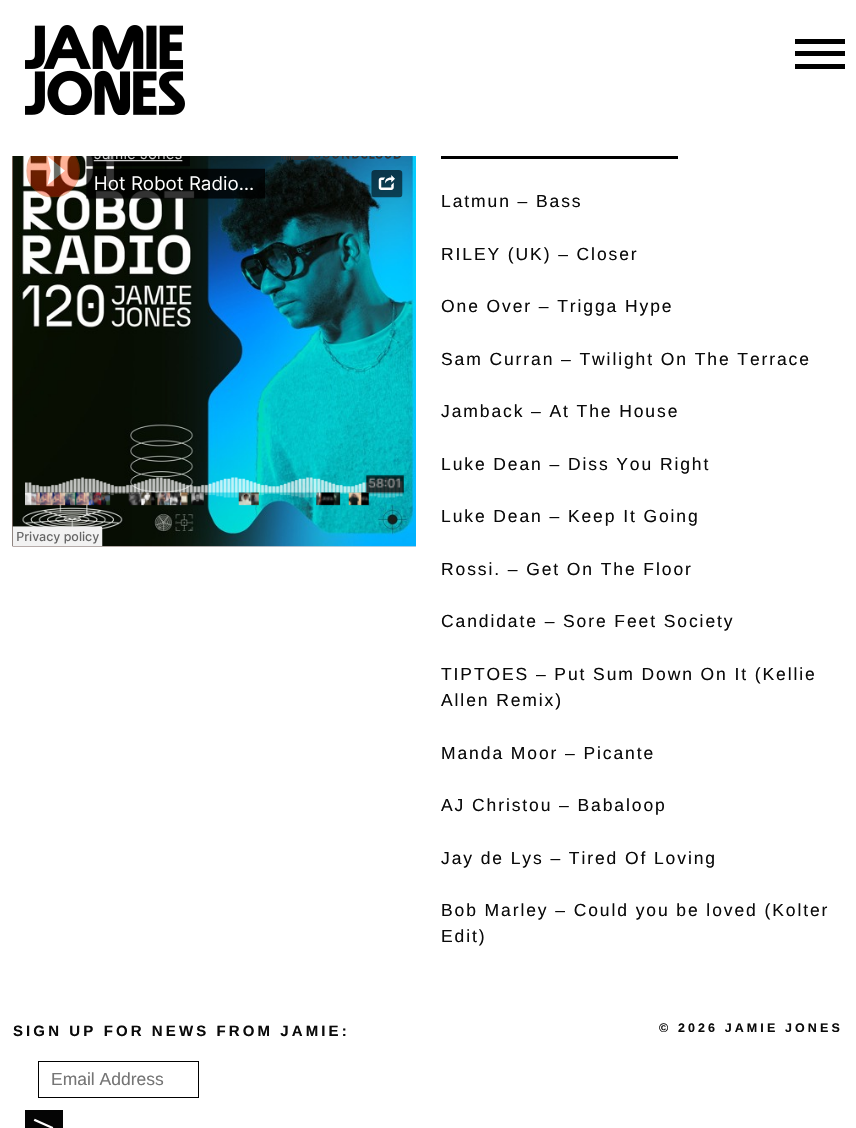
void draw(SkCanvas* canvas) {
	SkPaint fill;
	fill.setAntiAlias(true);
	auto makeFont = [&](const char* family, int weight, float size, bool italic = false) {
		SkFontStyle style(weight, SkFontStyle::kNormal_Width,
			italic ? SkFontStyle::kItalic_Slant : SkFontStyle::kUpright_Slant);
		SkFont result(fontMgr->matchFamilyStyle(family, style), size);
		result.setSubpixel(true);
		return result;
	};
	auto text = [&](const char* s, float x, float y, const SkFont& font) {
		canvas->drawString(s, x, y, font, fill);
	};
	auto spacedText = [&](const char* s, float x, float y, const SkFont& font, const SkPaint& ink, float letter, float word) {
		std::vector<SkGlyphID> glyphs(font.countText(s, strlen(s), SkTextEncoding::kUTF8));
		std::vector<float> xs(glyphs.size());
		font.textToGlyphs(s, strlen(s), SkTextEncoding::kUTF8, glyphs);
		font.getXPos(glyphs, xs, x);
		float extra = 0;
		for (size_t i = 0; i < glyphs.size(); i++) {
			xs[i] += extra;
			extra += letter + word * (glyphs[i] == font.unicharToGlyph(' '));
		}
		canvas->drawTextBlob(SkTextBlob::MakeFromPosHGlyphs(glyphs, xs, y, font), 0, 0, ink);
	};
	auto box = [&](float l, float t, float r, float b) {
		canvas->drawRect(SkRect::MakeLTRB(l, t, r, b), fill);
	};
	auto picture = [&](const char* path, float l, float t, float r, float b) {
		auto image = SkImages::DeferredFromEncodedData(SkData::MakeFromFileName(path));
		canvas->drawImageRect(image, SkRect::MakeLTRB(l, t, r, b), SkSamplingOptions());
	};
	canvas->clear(0xFFFFFFFF);
	picture("image0.png", 25, 25, 185, 115);
	fill.setColor(0xFF000000);
	box(795, 51, 845, 56);
	box(795, 39, 845, 44);
	box(795, 64, 845, 69);
	picture("image1.png", 12, 156, 416, 547);
	box(441, 156, 678, 159);
	fill.setStyle(SkPaint::kStroke_Style);
	fill.setStrokeWidth(1);
	canvas->drawRect(SkRect::MakeLTRB(38.5f, 1061.5f, 198.5f, 1097.5f), fill);
	fill.setStyle(SkPaint::kFill_Style);
	fill.setColor(0xFF050505);
	box(25, 1110, 63, 1128);
	fill.setStyle(SkPaint::kStroke_Style);
	fill.setStrokeWidth(1.2f);
	fill.setStrokeCap(SkPaint::kSquare_Cap);
	fill.setColor(0xFFFFFFFF);
	canvas->drawPath(SkPathBuilder().moveTo(51.5f, 1128).lineTo(34.5f, 1120.5f).lineTo(35, 1119.5f).lineTo(52.5f, 1127.5f).lineTo(52.5f, 1128).lineTo(52.5f, 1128.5f).lineTo(35, 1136.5f).lineTo(34.5f, 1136).close().detach(), fill);
	auto font1 = makeFont("Liberation Sans", 400, 17.5f);
	fill.setStyle(SkPaint::kFill_Style);
	fill.setColor(0xFF0A0A0A);
	spacedText("Latmun – Bass", 441, 207, font1, fill, 1.9f, 0);
	spacedText("RILEY (UK) – Closer", 441, 260, font1, fill, 1.9f, 0);
	spacedText("One Over – Trigga Hype", 441, 312, font1, fill, 1.9f, 0);
	spacedText("Sam Curran – Twilight On The Terrace", 441, 365, font1, fill, 1.9f, 0);
	spacedText("Jamback – At The House", 441, 417, font1, fill, 1.9f, 0);
	spacedText("Luke Dean – Diss You Right", 441, 470, font1, fill, 1.9f, 0);
	spacedText("Luke Dean – Keep It Going", 441, 522, font1, fill, 1.9f, 0);
	spacedText("Rossi. – Get On The Floor", 441, 575, font1, fill, 1.9f, 0);
	spacedText("Candidate – Sore Feet Society", 441, 627, font1, fill, 1.9f, 0);
	spacedText("TIPTOES – Put Sum Down On It (Kellie", 441, 680, font1, fill, 1.9f, 0);
	spacedText("Allen Remix)", 441, 706, font1, fill, 1.9f, 0);
	spacedText("Manda Moor – Picante", 441, 759, font1, fill, 1.9f, 0);
	spacedText("AJ Christou – Babaloop", 441, 811, font1, fill, 1.9f, 0);
	spacedText("Jay de Lys – Tired Of Loving", 441, 864, font1, fill, 1.9f, 0);
	spacedText("Bob Marley – Could you be loved (Kolter", 441, 916, font1, fill, 1.9f, 0);
	spacedText("Edit)", 441, 942, font1, fill, 1.9f, 0);
	auto font2 = makeFont("Liberation Sans", 700, 15);
	spacedText("SIGN UP FOR NEWS FROM JAMIE:", 13, 1036, font2, fill, 3.1f, 0);
	fill.setColor(0xFF757575);
	text("Email Address", 51, 1085, font1);
	auto font3 = makeFont("Liberation Sans", 700, 12.5f);
	fill.setColor(0xFF0A0A0A);
	spacedText("© 2026 JAMIE JONES", 659, 1032, font3, fill, 3.1f, 0);
}
